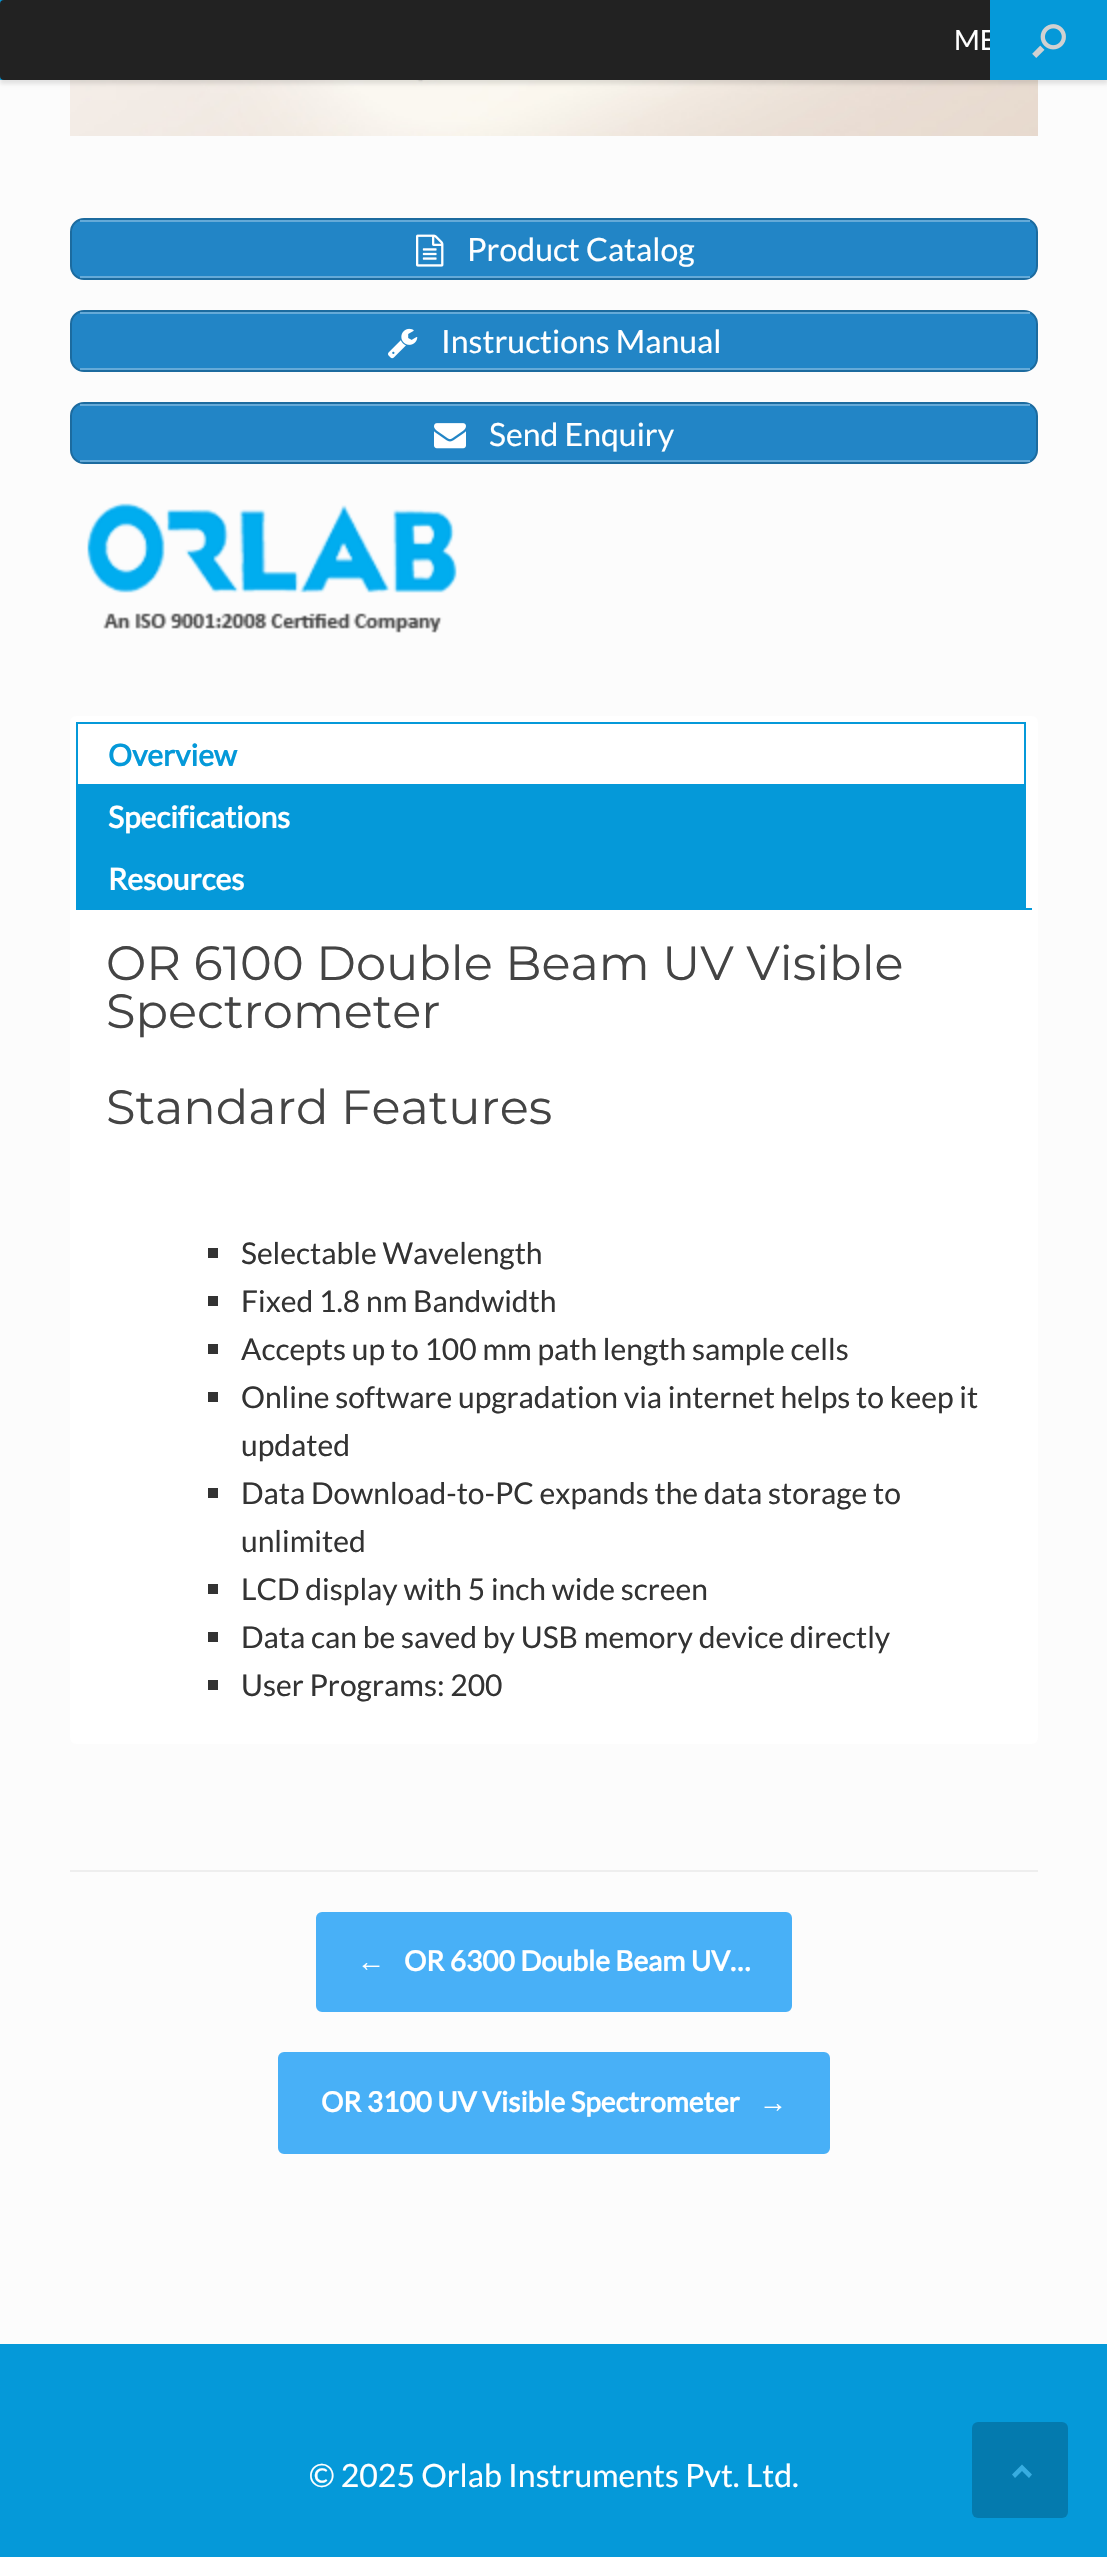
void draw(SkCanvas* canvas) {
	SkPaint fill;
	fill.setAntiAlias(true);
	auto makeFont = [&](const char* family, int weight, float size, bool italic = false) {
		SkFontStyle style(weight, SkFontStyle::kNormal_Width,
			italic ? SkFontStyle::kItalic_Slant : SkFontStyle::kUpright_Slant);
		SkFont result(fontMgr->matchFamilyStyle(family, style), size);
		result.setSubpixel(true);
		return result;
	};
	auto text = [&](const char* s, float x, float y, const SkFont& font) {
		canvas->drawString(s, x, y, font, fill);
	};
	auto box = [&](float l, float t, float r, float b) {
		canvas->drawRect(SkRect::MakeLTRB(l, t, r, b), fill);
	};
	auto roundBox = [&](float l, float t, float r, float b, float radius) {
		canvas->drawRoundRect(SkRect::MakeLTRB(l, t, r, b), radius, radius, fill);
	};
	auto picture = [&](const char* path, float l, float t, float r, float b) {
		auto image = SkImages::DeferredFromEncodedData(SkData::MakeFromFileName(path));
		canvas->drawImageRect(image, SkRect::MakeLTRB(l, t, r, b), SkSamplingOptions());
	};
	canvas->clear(0xFFFCFCFC);
	picture("image1.png", 70, 80, 1038, 136);
	fill.setColor(0x1A000000);
	fill.setMaskFilter(SkMaskFilter::MakeBlur(kNormal_SkBlurStyle, 2));
	canvas->drawRect(SkRect::MakeLTRB(0, 4, 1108, 84), fill);
	fill.setMaskFilter(nullptr);
	fill.setColor(0xFF0599D9);
	box(0, 0, 4, 80);
	fill.setColor(0xFF222222);
	roundBox(0, 0, 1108, 80, 4);
	fill.setColor(0xFFEEEEEE);
	box(70, 1870, 1038, 1872);
	fill.setColor(0xFF2285C6);
	canvas->drawRoundRect(SkRect::MakeLTRB(71, 219, 1037, 279), 13, 13, fill);
	fill.setStyle(SkPaint::kStroke_Style);
	fill.setStrokeWidth(2);
	fill.setColor(0xFF1C6B9F);
	canvas->drawRoundRect(SkRect::MakeLTRB(71, 219, 1037, 279), 13, 13, fill);
	fill.setStyle(SkPaint::kFill_Style);
	fill.setColor(0xFF65AAD8);
	box(80, 220, 1030, 222);
	box(80, 276, 1030, 278);
	picture("image2.png", 416, 234, 444, 267);
	fill.setColor(0xFF2285C6);
	canvas->drawRoundRect(SkRect::MakeLTRB(71, 311, 1037, 371), 13, 13, fill);
	fill.setStyle(SkPaint::kStroke_Style);
	fill.setColor(0xFF1C6B9F);
	canvas->drawRoundRect(SkRect::MakeLTRB(71, 311, 1037, 371), 13, 13, fill);
	fill.setStyle(SkPaint::kFill_Style);
	fill.setColor(0xFF65AAD8);
	box(80, 312, 1030, 314);
	box(80, 368, 1030, 370);
	picture("image3.png", 388, 328, 418, 359);
	fill.setColor(0xFF2285C6);
	canvas->drawRoundRect(SkRect::MakeLTRB(71, 403, 1037, 463), 13, 13, fill);
	fill.setStyle(SkPaint::kStroke_Style);
	fill.setColor(0xFF1C6B9F);
	canvas->drawRoundRect(SkRect::MakeLTRB(71, 403, 1037, 463), 13, 13, fill);
	fill.setStyle(SkPaint::kFill_Style);
	fill.setColor(0xFF65AAD8);
	box(80, 404, 1030, 406);
	box(80, 460, 1030, 462);
	picture("image4.png", 434, 423, 466, 449);
	picture("image5.png", 87, 503, 457, 633);
	fill.setColor(0xFFFFFFFF);
	roundBox(70, 716, 1038, 1744, 6);
	fill.setColor(0xFF0599D9);
	box(76, 908, 1032, 910);
	box(76, 722, 1026, 724);
	box(1024, 722, 1026, 784);
	box(76, 722, 78, 784);
	box(76, 784, 1026, 908);
	fill.setColor(0xFF333333);
	box(208, 1248, 218, 1258);
	box(208, 1296, 218, 1306);
	box(208, 1344, 218, 1354);
	box(208, 1392, 218, 1402);
	box(208, 1488, 218, 1498);
	box(208, 1584, 218, 1594);
	box(208, 1632, 218, 1642);
	box(208, 1680, 218, 1690);
	fill.setColor(0xFF48B0F7);
	canvas->drawRoundRect(SkRect::MakeLTRB(317, 1913, 791, 2011), 5, 5, fill);
	fill.setStyle(SkPaint::kStroke_Style);
	canvas->drawRoundRect(SkRect::MakeLTRB(317, 1913, 791, 2011), 5, 5, fill);
	fill.setStyle(SkPaint::kFill_Style);
	canvas->drawRoundRect(SkRect::MakeLTRB(279, 2053, 829, 2153), 5, 5, fill);
	fill.setStyle(SkPaint::kStroke_Style);
	canvas->drawRoundRect(SkRect::MakeLTRB(279, 2053, 829, 2153), 5, 5, fill);
	fill.setStyle(SkPaint::kFill_Style);
	fill.setColor(0xFF0599D9);
	box(0, 2344, 1107, 2557);
	fill.setColor(0xFF047AAE);
	roundBox(972, 2422, 1068, 2518, 6);
	fill.setColor(0xFF37ADE1);
	canvas->drawPath(SkPathBuilder().moveTo(1032, 2474.5f).lineTo(1022, 2464.5f).lineTo(1012, 2474.5f).lineTo(1015, 2478).lineTo(1022, 2471).lineTo(1029, 2478).close().detach(), fill);
	auto font1 = makeFont("Lato", 400, 28);
	fill.setColor(0xFFFFFFFF);
	text("ME", 954, 50, font1);
	fill.setColor(0xFF0599D9);
	box(990, 0, 1107, 80);
	picture("image0.png", 1032, 24, 1066, 58);
	auto font2 = makeFont("Lato", 400, 32);
	fill.setColor(0xFFFFFFFF);
	text("Product Catalog", 467, 261, font2);
	text("Instructions Manual", 441, 353, font2);
	text("Send Enquiry", 489, 446, font2);
	auto font3 = makeFont("Lato", 700, 30);
	fill.setColor(0xFF0599D9);
	text("Overview", 108, 766, font3);
	fill.setColor(0xFFFFFFFF);
	text("Specifications", 108, 828, font3);
	text("Resources", 108, 890, font3);
	auto font4 = makeFont("Montserrat", 100, 48);
	fill.setColor(0xFF444444);
	text("OR 6100 Double Beam UV Visible", 106, 980, font4);
	text("Spectrometer", 106, 1028, font4);
	text("Standard Features", 106, 1124, font4);
	auto font5 = makeFont("Lato", 400, 30);
	fill.setColor(0xFF333333);
	text("Selectable Wavelength", 241, 1264, font5);
	text("Fixed 1.8 nm Bandwidth", 241, 1312, font5);
	text("Accepts up to 100 mm path length sample cells", 241, 1360, font5);
	text("Online software upgradation via internet helps to keep it", 241, 1408, font5);
	text("updated", 241, 1456, font5);
	text("Data Download-to-PC expands the data storage to", 241, 1504, font5);
	text("unlimited", 241, 1552, font5);
	text("LCD display with 5 inch wide screen", 241, 1600, font5);
	text("Data can be saved by USB memory device directly", 241, 1648, font5);
	text("User Programs: 200", 241, 1696, font5);
	auto font6 = makeFont("Liberation Serif", 700, 28);
	fill.setColor(0xFFFFFFFF);
	text("←", 357, 1971, font6);
	auto font7 = makeFont("Lato", 700, 28);
	text("OR 6300 Double Beam UV…", 404, 1971, font7);
	text("OR 3100 UV Visible Spectrometer", 321, 2112, font7);
	text("→", 759, 2112, font6);
	text("© 2025 Orlab Instruments Pvt. Ltd.", 309, 2487, font2);
}
